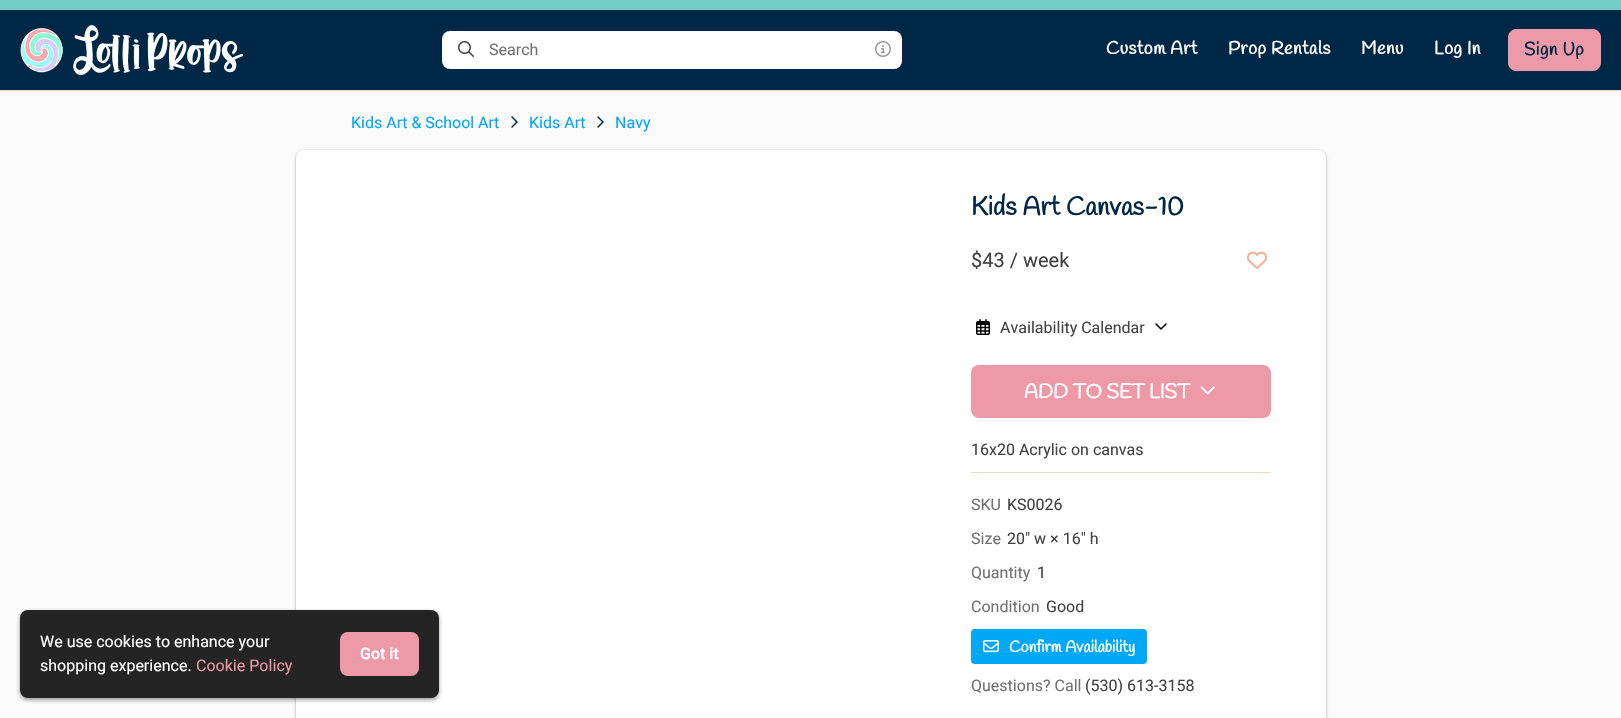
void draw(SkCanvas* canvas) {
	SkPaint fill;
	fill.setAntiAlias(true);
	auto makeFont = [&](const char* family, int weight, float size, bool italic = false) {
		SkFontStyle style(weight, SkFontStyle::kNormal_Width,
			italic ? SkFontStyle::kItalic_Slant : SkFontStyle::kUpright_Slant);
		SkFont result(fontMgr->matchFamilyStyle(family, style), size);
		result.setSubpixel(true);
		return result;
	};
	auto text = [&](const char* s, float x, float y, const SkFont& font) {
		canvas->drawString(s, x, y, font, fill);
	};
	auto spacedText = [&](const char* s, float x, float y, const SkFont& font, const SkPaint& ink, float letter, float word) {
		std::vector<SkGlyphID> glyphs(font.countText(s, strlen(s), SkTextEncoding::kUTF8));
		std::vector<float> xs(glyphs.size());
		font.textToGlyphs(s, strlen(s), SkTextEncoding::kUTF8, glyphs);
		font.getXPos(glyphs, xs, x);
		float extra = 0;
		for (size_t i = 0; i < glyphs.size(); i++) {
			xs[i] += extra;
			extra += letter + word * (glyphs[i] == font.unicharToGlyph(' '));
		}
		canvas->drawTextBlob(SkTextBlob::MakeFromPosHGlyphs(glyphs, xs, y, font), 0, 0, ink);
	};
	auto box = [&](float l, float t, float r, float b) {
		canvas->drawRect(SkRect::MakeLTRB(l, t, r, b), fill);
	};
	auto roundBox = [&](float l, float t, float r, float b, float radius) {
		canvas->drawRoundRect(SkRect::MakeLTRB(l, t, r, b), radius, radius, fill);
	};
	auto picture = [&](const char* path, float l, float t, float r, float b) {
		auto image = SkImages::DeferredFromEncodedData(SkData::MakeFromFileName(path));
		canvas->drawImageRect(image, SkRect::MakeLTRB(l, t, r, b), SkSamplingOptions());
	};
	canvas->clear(0xFFFAFAFA);
	fill.setColor(0xFF75CEC9);
	box(0, 0, 1621, 10);
	fill.setColor(0xFF002746);
	box(0, 10, 1621, 90);
	picture("image0.png", 20, 25, 243, 75);
	fill.setColor(0xFFFFFFFF);
	roundBox(442, 31, 902, 69, 8);
	picture("image1.png", 458, 41, 474, 57);
	picture("image2.png", 875, 41, 891, 57);
	fill.setColor(0xFFED99A8);
	canvas->drawRoundRect(SkRect::MakeLTRB(1508.5f, 29.5f, 1600.5f, 70.5f), 7.5f, 7.5f, fill);
	fill.setStyle(SkPaint::kStroke_Style);
	fill.setStrokeWidth(1);
	canvas->drawRoundRect(SkRect::MakeLTRB(1508.5f, 29.5f, 1600.5f, 70.5f), 7.5f, 7.5f, fill);
	fill.setStyle(SkPaint::kFill_Style);
	fill.setColor(0x263C4043);
	fill.setMaskFilter(SkMaskFilter::MakeBlur(kNormal_SkBlurStyle, 1.5f));
	canvas->drawRoundRect(SkRect::MakeLTRB(295, 150, 1327, 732), 9, 9, fill);
	fill.setMaskFilter(nullptr);
	fill.setColor(0x4D3C4043);
	fill.setMaskFilter(SkMaskFilter::MakeBlur(kNormal_SkBlurStyle, 1));
	canvas->drawRoundRect(SkRect::MakeLTRB(296, 151, 1326, 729), 8, 8, fill);
	fill.setMaskFilter(nullptr);
	fill.setColor(0xFFFFFFFF);
	roundBox(296, 150, 1326, 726, 8);
	fill.setColor(0x80323232);
	fill.setMaskFilter(SkMaskFilter::MakeBlur(kNormal_SkBlurStyle, 2));
	canvas->drawRoundRect(SkRect::MakeLTRB(20, 612, 439, 700), 8, 8, fill);
	fill.setMaskFilter(nullptr);
	fill.setColor(0xFF242424);
	roundBox(20, 610, 439, 698, 8);
	fill.setColor(0xFFED99A8);
	roundBox(340, 632, 419, 676, 8);
	fill.setColor(0xFFE7DAC1);
	box(0, 90, 1621, 91);
	picture("image3.png", 511, 116, 518, 128);
	picture("image3.png", 597, 116, 604, 128);
	picture("image4.png", 1247, 251, 1267, 269);
	picture("image5.png", 976, 319, 990, 335);
	picture("image6.png", 1155, 323, 1167, 330);
	fill.setColor(0xFFED99A8);
	roundBox(971, 365, 1271, 418, 8);
	picture("image7.png", 1200, 386, 1215, 395);
	fill.setColor(0xFFE7DAC1);
	box(971, 472, 1271, 473);
	fill.setColor(0xFF02A8F8);
	roundBox(971, 629, 1147, 664, 4);
	picture("image8.png", 983, 640, 999, 652);
	auto font1 = makeFont("Heebo", 400, 16);
	fill.setColor(0xFF717171);
	text("Search", 489, 55, font1);
	auto font2 = makeFont("Handlee", 700, 18);
	fill.setColor(0xFFFFFFFF);
	spacedText("Custom Art", 1106, 54, font2, fill, 0.5f, 0);
	spacedText("Prop Rentals", 1228, 54, font2, fill, 0.5f, 0);
	spacedText("Menu", 1361, 54, font2, fill, 0.5f, 0);
	spacedText("Log In", 1434, 54, font2, fill, 0.5f, 0);
	fill.setColor(0xFF002746);
	spacedText("Sign Up", 1524, 55, font2, fill, 0.5f, 0);
	fill.setColor(0xFFFFFFFF);
	text("We use cookies to enhance your", 40, 647, font1);
	text("shopping experience.", 40, 671, font1);
	fill.setColor(0xFFED99A8);
	text("Cookie Policy", 196, 671, font1);
	auto font3 = makeFont("Heebo", 600, 16);
	fill.setColor(0xFFFFFFFF);
	text("Got it", 360, 659, font3);
	fill.setColor(0xFF02A8F8);
	text("Kids Art & School Art", 351, 128, font1);
	text("Kids Art", 529, 128, font1);
	text("Navy", 615, 128, font1);
	auto font4 = makeFont("Handlee", 700, 26);
	fill.setColor(0xFF002746);
	text("Kids Art Canvas-10", 971, 215, font4);
	auto font5 = makeFont("Heebo", 400, 20);
	fill.setColor(0xFF424242);
	text("$43 / week", 971, 267, font5);
	text("Availability Calendar", 1000, 333, font1);
	auto font6 = makeFont("Handlee", 700, 20);
	fill.setColor(0xFFFFFFFF);
	text("ADD TO SET LIST", 1024, 398, font6);
	fill.setColor(0xFF424242);
	text("16x20 Acrylic on canvas", 971, 455, font1);
	fill.setColor(0xFF717171);
	text("SKU", 971, 510, font1);
	fill.setColor(0xFF424242);
	text("KS0026", 1007, 510, font1);
	fill.setColor(0xFF717171);
	text("Size", 971, 544, font1);
	fill.setColor(0xFF424242);
	text("20\" w × 16\" h", 1007, 544, font1);
	fill.setColor(0xFF717171);
	text("Quantity", 971, 578, font1);
	fill.setColor(0xFF424242);
	text("1", 1037, 578, font1);
	fill.setColor(0xFF717171);
	text("Condition", 971, 612, font1);
	fill.setColor(0xFF424242);
	text("Good", 1046, 612, font1);
	auto font7 = makeFont("Handlee", 700, 16);
	fill.setColor(0xFFFFFFFF);
	text("Confirm Availability", 1009, 652, font7);
	fill.setColor(0xFF717171);
	text("Questions? Call", 971, 691, font1);
	fill.setColor(0xFF424242);
	text("(530) 613-3158", 1085, 691, font1);
}
